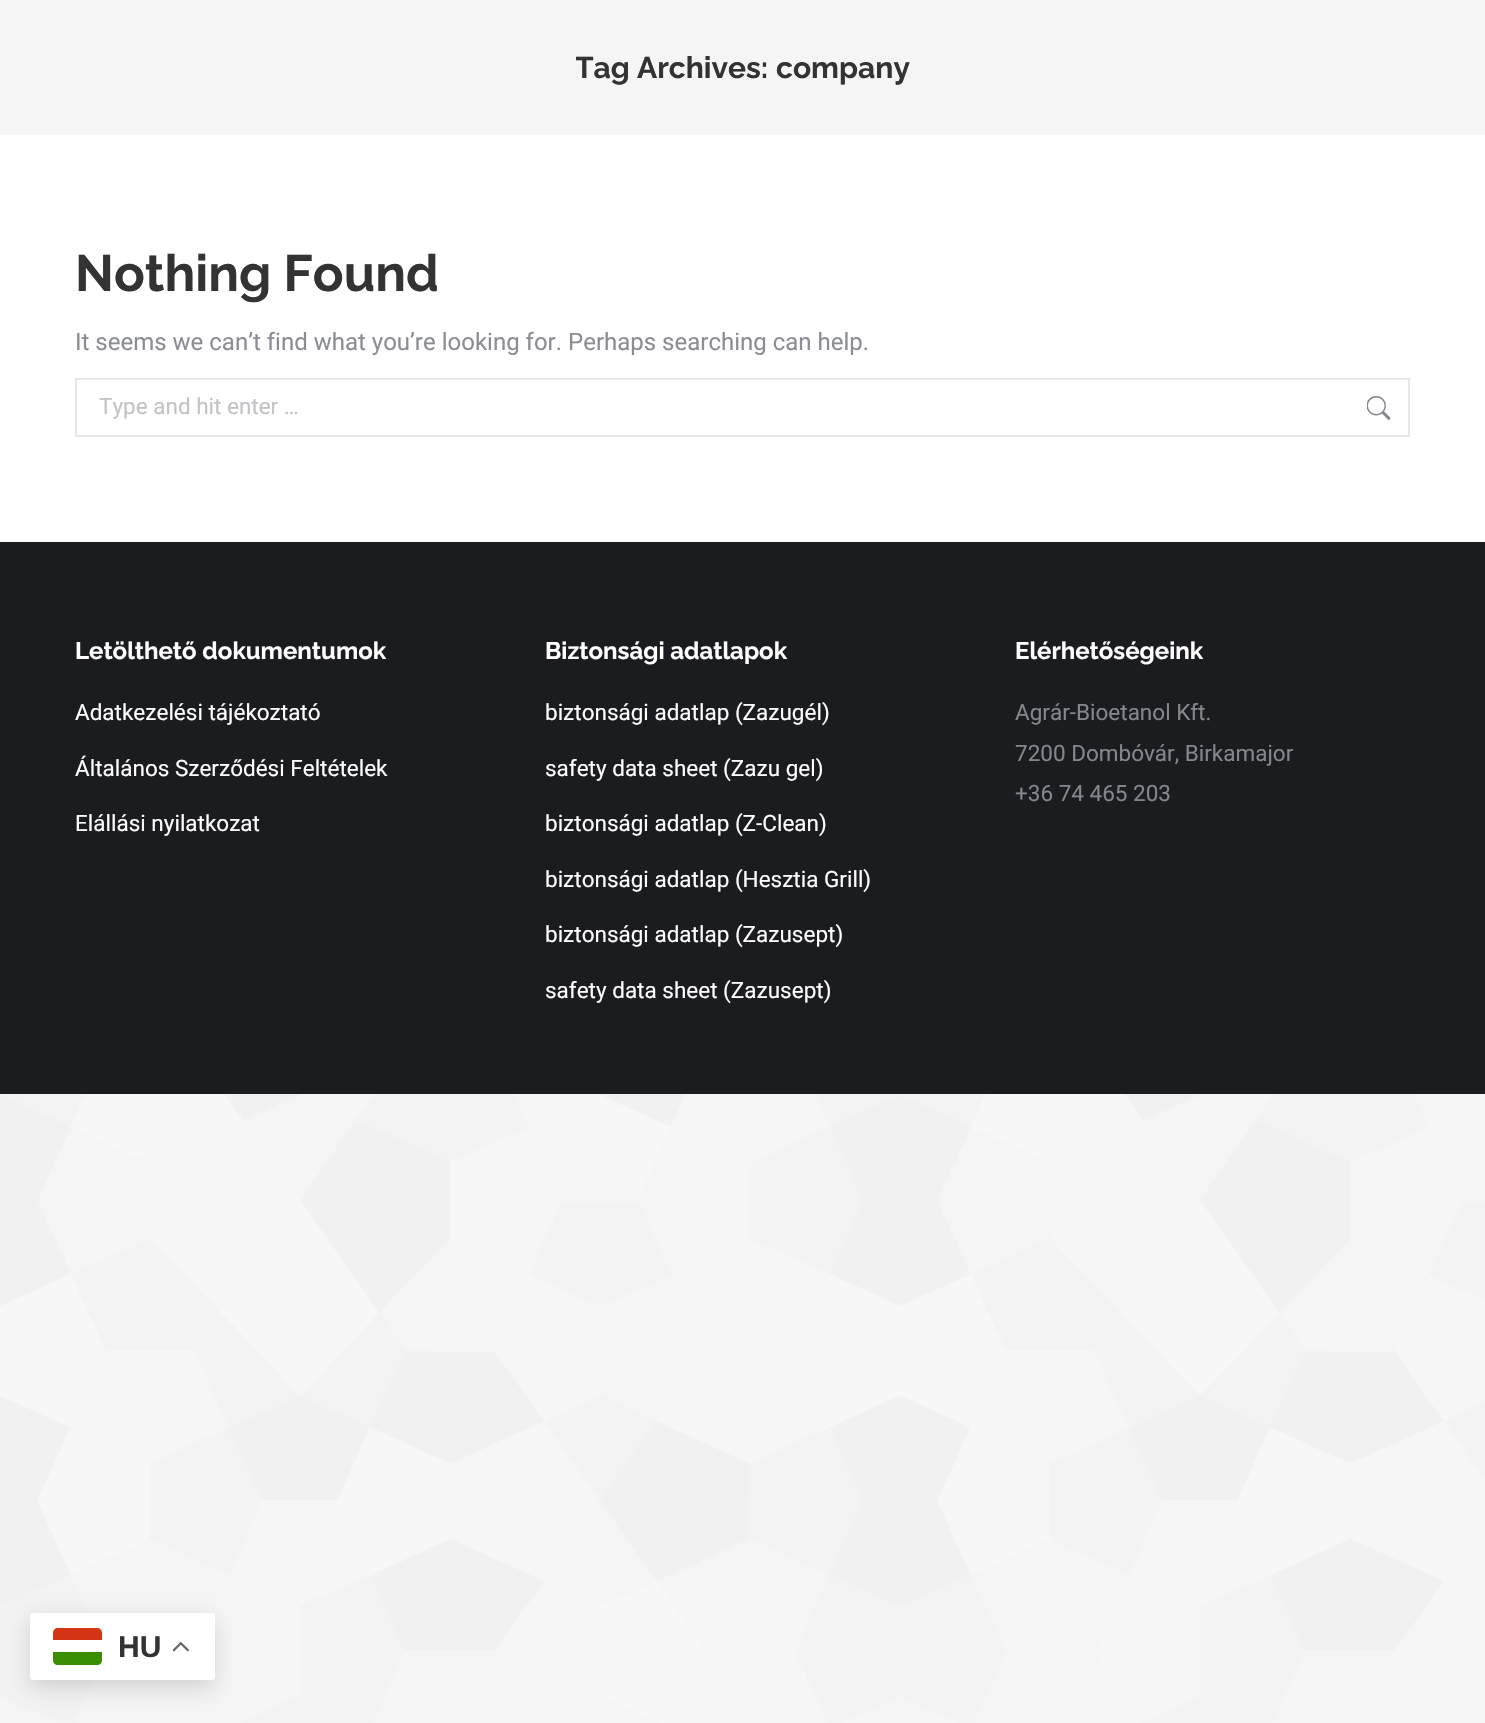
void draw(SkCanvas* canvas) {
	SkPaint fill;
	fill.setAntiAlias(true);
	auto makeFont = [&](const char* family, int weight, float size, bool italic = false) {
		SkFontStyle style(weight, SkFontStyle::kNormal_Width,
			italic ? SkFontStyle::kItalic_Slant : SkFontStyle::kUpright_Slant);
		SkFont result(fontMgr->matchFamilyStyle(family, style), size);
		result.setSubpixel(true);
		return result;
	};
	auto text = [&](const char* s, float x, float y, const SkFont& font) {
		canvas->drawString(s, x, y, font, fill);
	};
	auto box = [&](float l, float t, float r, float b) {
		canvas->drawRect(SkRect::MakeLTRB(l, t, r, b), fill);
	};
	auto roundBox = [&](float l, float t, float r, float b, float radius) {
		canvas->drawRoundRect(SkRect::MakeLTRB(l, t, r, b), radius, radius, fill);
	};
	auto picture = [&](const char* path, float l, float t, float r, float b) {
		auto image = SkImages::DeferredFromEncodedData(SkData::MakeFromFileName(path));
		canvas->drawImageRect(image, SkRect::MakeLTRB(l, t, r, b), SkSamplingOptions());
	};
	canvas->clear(0xFFFFFFFF);
	picture("image0.png", 0, 1094, 1485, 1723);
	fill.setColor(0xFFF5F5F5);
	box(0, 0, 1485, 135);
	fill.setStyle(SkPaint::kStroke_Style);
	fill.setStrokeWidth(2);
	fill.setColor(0xFFE7E7E7);
	canvas->drawRect(SkRect::MakeLTRB(76, 379, 1409, 436), fill);
	picture("image1.png", 1367, 396, 1391, 420);
	fill.setStyle(SkPaint::kFill_Style);
	fill.setColor(0xFF1A1C20);
	box(0, 542, 1485, 1094);
	fill.setColor(0x26000000);
	fill.setMaskFilter(SkMaskFilter::MakeBlur(kNormal_SkBlurStyle, 11));
	canvas->drawRoundRect(SkRect::MakeLTRB(30, 1620, 215, 1688), 3, 3, fill);
	fill.setMaskFilter(nullptr);
	fill.setColor(0xFFFFFFFF);
	roundBox(30, 1613, 215, 1680, 3);
	fill.setColor(0xFF388D00);
	canvas->drawPath(SkPathBuilder().moveTo(53, 1652).lineTo(102, 1652).lineTo(102, 1660).cubicTo(102, 1663, 100, 1665, 97, 1665).lineTo(58, 1665).cubicTo(55, 1665, 53, 1663, 53, 1660).close().detach(), fill);
	fill.setColor(0xFFD43516);
	canvas->drawPath(SkPathBuilder().moveTo(58, 1628).lineTo(97, 1628).cubicTo(100, 1628, 102, 1630, 102, 1633).lineTo(102, 1640).lineTo(53, 1640).lineTo(53, 1633).cubicTo(53, 1630, 55, 1628, 58, 1628).close().detach(), fill);
	picture("image2.png", 173, 1641, 189, 1652);
	canvas->save();
	canvas->clipRect(SkRect::MakeLTRB(576, 45, 909, 90));
	auto font1 = makeFont("Raleway", 700, 30);
	fill.setColor(0xFF333333);
	text("Tag Archives:", 575, 78, font1);
	canvas->restore();
	text("company", 776, 78, font1);
	auto font2 = makeFont("Raleway", 700, 51);
	text("Nothing Found", 75, 291, font2);
	auto font3 = makeFont("Roboto", 400, 24);
	fill.setColor(0xFF8B8D94);
	text("It seems we can’t find what you’re looking for. Perhaps searching can help.", 75, 350, font3);
	auto font4 = makeFont("Roboto", 400, 22.5f);
	fill.setColor(0xFFC2C3C6);
	text("Type and hit enter …", 99, 414, font4);
	auto font5 = makeFont("Raleway", 700, 24);
	fill.setColor(0xFFFFFFFF);
	text("Letölthető dokumentumok", 75, 659, font5);
	text("Adatkezelési tájékoztató", 75, 720, font4);
	text("Általános Szerződési Feltételek", 75, 776, font4);
	text("Elállási nyilatkozat", 75, 831, font4);
	text("Biztonsági adatlapok", 545, 659, font5);
	text("biztonsági adatlap (Zazugél)", 545, 720, font4);
	text("safety data sheet (Zazu gel)", 545, 776, font4);
	text("biztonsági adatlap (Z-Clean)", 545, 831, font4);
	text("biztonsági adatlap (Hesztia Grill)", 545, 887, font4);
	text("biztonsági adatlap (Zazusept)", 545, 942, font4);
	text("safety data sheet (Zazusept)", 545, 998, font4);
	text("Elérhetőségeink", 1015, 659, font5);
	fill.setColor(0xFF85868C);
	text("Agrár-Bioetanol Kft.", 1015, 720, font4);
	text("7200 Dombóvár, Birkamajor", 1015, 761, font4);
	text("+36 74 465 203", 1015, 801, font4);
	auto font6 = makeFont("Liberation Sans", 700, 30);
	fill.setColor(0xFF333333);
	text("HU", 118, 1657, font6);
}
